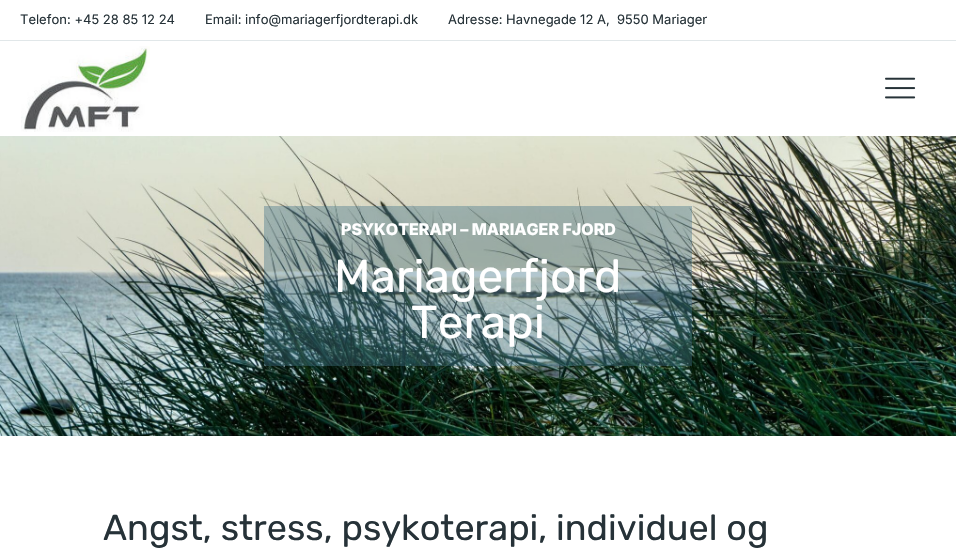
void draw(SkCanvas* canvas) {
	SkPaint fill;
	fill.setAntiAlias(true);
	auto makeFont = [&](const char* family, int weight, float size, bool italic = false) {
		SkFontStyle style(weight, SkFontStyle::kNormal_Width,
			italic ? SkFontStyle::kItalic_Slant : SkFontStyle::kUpright_Slant);
		SkFont result(fontMgr->matchFamilyStyle(family, style), size);
		result.setSubpixel(true);
		return result;
	};
	auto text = [&](const char* s, float x, float y, const SkFont& font) {
		canvas->drawString(s, x, y, font, fill);
	};
	auto box = [&](float l, float t, float r, float b) {
		canvas->drawRect(SkRect::MakeLTRB(l, t, r, b), fill);
	};
	auto picture = [&](const char* path, float l, float t, float r, float b) {
		auto image = SkImages::DeferredFromEncodedData(SkData::MakeFromFileName(path));
		canvas->drawImageRect(image, SkRect::MakeLTRB(l, t, r, b), SkSamplingOptions());
	};
	canvas->clear(0xFFFFFFFF);
	fill.setColor(0xFFE1E7E9);
	box(0, 40, 956, 41);
	picture("image0.png", 21, 46, 150, 132);
	picture("image1.png", 885, 77, 916, 99);
	picture("image2.png", 0, 136, 956, 436);
	fill.setColor(0x6641748A);
	box(264, 206, 692, 366);
	auto font1 = makeFont("Inter", 400, 13);
	fill.setColor(0xFF263238);
	text("Telefon: +45 28 85 12 24", 20, 24, font1);
	text("Email:", 205, 24, font1);
	text("info@mariagerfjordterapi.dk", 245, 24, font1);
	text("Adresse: Havnegade 12 A,  9550 Mariager", 448, 24, font1);
	auto font2 = makeFont("Inter", 800, 16);
	fill.setColor(0xFFFFFFFF);
	text("PSYKOTERAPI – MARIAGER FJORD", 341, 235, font2);
	auto font3 = makeFont("Rubik", 400, 46);
	text("Mariagerfjord", 334, 292, font3);
	text("Terapi", 411, 338, font3);
	auto font4 = makeFont("Rubik", 400, 36);
	fill.setColor(0xFF263238);
	text("Angst, stress, psykoterapi, individuel og", 103, 540, font4);
}
